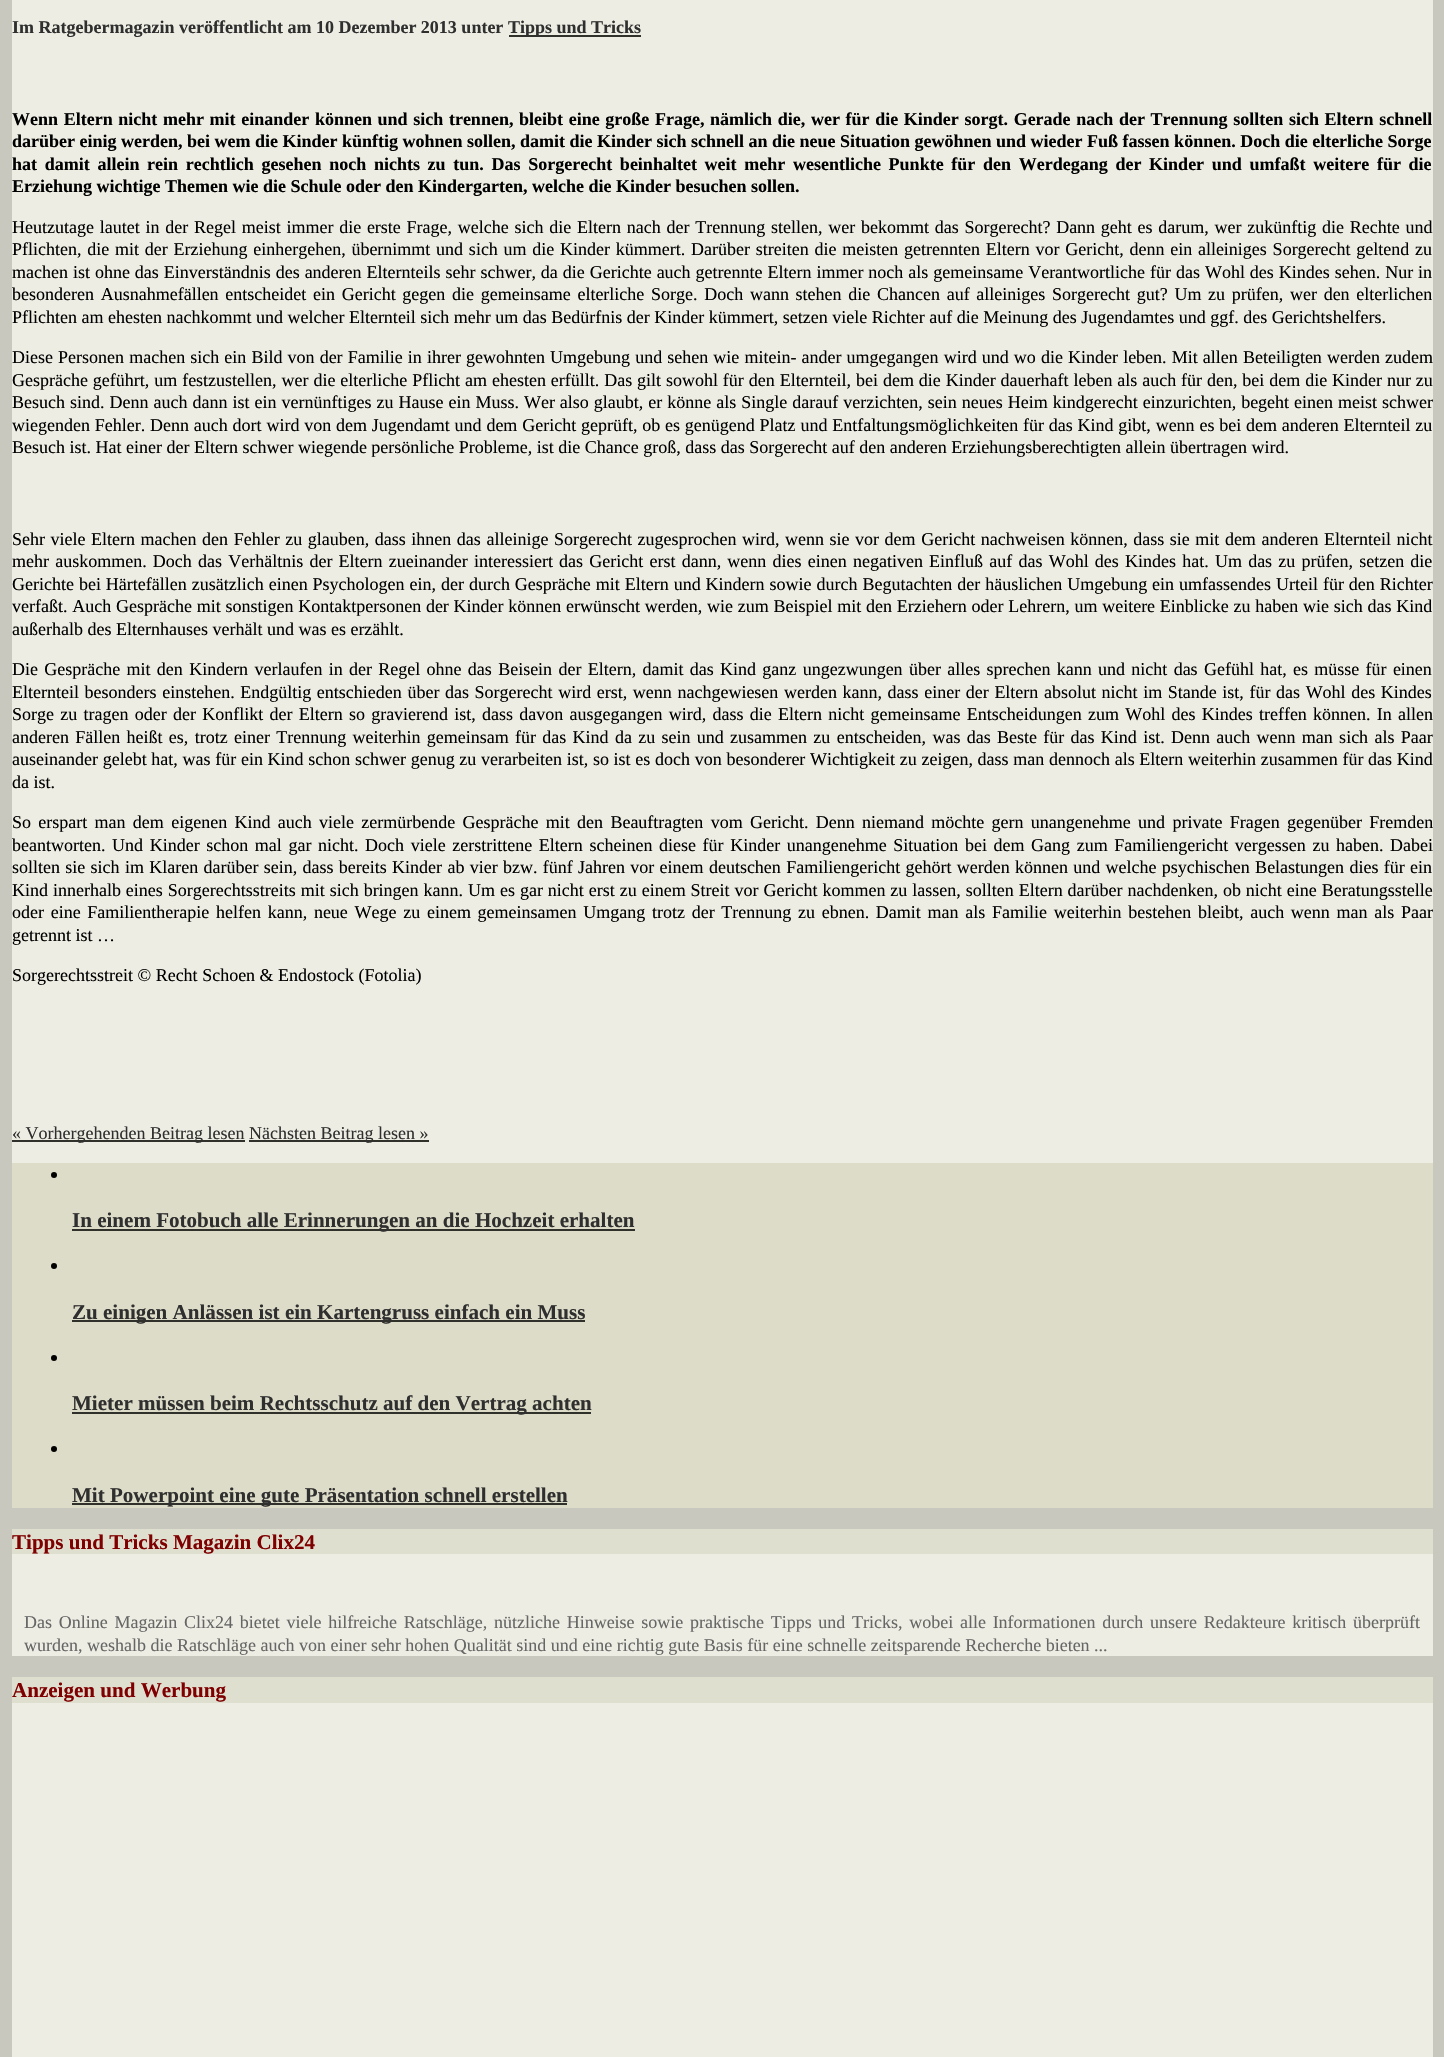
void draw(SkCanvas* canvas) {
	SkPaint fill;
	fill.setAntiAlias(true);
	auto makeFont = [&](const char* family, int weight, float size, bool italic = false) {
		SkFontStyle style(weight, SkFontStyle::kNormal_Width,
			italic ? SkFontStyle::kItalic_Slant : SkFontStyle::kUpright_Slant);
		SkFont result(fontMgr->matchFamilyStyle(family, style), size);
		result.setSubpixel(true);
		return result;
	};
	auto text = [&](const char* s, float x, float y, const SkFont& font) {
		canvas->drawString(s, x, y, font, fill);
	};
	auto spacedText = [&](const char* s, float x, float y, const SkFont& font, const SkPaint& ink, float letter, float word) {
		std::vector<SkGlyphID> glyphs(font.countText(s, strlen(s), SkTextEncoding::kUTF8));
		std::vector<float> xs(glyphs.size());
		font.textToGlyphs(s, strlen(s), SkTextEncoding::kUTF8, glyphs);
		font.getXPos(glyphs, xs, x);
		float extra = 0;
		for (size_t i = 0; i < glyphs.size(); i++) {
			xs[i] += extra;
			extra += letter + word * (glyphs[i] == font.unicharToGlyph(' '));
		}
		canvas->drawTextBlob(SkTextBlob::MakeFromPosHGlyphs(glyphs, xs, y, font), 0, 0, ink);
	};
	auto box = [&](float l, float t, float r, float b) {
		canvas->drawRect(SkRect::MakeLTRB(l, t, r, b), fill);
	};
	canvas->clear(0xFFC8C8BE);
	fill.setColor(0xFFEDEDE3);
	box(12, 0, 1433, 1163);
	fill.setColor(0xFF30312B);
	box(509, 35, 641, 37);
	box(12, 1140, 245, 1142);
	box(249, 1140, 429, 1142);
	fill.setColor(0xFFDDDCC8);
	box(12, 1163, 1433, 1508);
	fill.setColor(0xFF000000);
	canvas->drawCircle(54, 1175, 3, fill);
	fill.setColor(0xFF30312B);
	box(72, 1229, 635, 1231);
	fill.setColor(0xFF000000);
	canvas->drawCircle(54, 1266, 3, fill);
	fill.setColor(0xFF30312B);
	box(72, 1320, 585, 1322);
	fill.setColor(0xFF000000);
	canvas->drawCircle(54, 1358, 3, fill);
	fill.setColor(0xFF30312B);
	box(72, 1412, 591, 1414);
	fill.setColor(0xFF000000);
	canvas->drawCircle(54, 1449, 3, fill);
	fill.setColor(0xFF30312B);
	box(72, 1503, 567, 1505);
	fill.setColor(0xFFEDEDE3);
	box(12, 1554, 1433, 1656);
	fill.setColor(0xFFDEDFCF);
	box(12, 1529, 1433, 1554);
	fill.setColor(0xFFEDEDE3);
	box(12, 1703, 1433, 2057);
	fill.setColor(0xFFDEDFCF);
	box(12, 1677, 1433, 1703);
	auto font1 = makeFont("Liberation Serif", 700, 18);
	fill.setColor(0xFF2F2F2F);
	text("Im Ratgebermagazin veröffentlicht am 10 Dezember 2013 unter", 12, 33, font1);
	text("Tipps und Tricks", 508, 33, font1);
	fill.setColor(0xFF000000);
	spacedText("Wenn Eltern nicht mehr mit einander können und sich trennen, bleibt eine große Frage, nämlich die, wer für die Kinder sorgt. Gerade nach der Trennung sollten sich Eltern schnell", 12, 125, font1, fill, 0, 1.15f);
	text("darüber einig werden, bei wem die Kinder künftig wohnen sollen, damit die Kinder sich schnell an die neue Situation gewöhnen und wieder Fuß fassen können. Doch die elterliche Sorge", 12, 147, font1);
	spacedText("hat damit allein rein rechtlich gesehen noch nichts zu tun. Das Sorgerecht beinhaltet weit mehr wesentliche Punkte für den Werdegang der Kinder und umfaßt weitere für die", 12, 170, font1, fill, 0, 3.2f);
	text("Erziehung wichtige Themen wie die Schule oder den Kindergarten, welche die Kinder besuchen sollen.", 12, 192, font1);
	auto font2 = makeFont("Liberation Serif", 400, 18);
	spacedText("Heutzutage lautet in der Regel meist immer die erste Frage, welche sich die Eltern nach der Trennung stellen, wer bekommt das Sorgerecht? Dann geht es darum, wer zukünftig die Rechte und", 12, 233, font2, fill, 0, 1.25f);
	spacedText("Pflichten, die mit der Erziehung einhergehen, übernimmt und sich um die Kinder kümmert. Darüber streiten die meisten getrennten Eltern vor Gericht, denn ein alleiniges Sorgerecht geltend zu", 12, 255, font2, fill, 0, 1.25f);
	spacedText("machen ist ohne das Einverständnis des anderen Elternteils sehr schwer, da die Gerichte auch getrennte Eltern immer noch als gemeinsame Verantwortliche für das Wohl des Kindes sehen. Nur in", 12, 278, font2, fill, 0, 0.45f);
	spacedText("besonderen Ausnahmefällen entscheidet ein Gericht gegen die gemeinsame elterliche Sorge. Doch wann stehen die Chancen auf alleiniges Sorgerecht gut? Um zu prüfen, wer den elterlichen", 12, 300, font2, fill, 0, 2.2f);
	text("Pflichten am ehesten nachkommt und welcher Elternteil sich mehr um das Bedürfnis der Kinder kümmert, setzen viele Richter auf die Meinung des Jugendamtes und ggf. des Gerichtshelfers.", 12, 323, font2);
	spacedText("Diese Personen machen sich ein Bild von der Familie in ihrer gewohnten Umgebung und sehen wie mitein- ander umgegangen wird und wo die Kinder leben. Mit allen Beteiligten werden zudem", 12, 363, font2, fill, 0, 0.6f);
	spacedText("Gespräche geführt, um festzustellen, wer die elterliche Pflicht am ehesten erfüllt. Das gilt sowohl für den Elternteil, bei dem die Kinder dauerhaft leben als auch für den, bei dem die Kinder nur zu", 12, 386, font2, fill, 0, 0.4f);
	spacedText("Besuch sind. Denn auch dann ist ein vernünftiges zu Hause ein Muss. Wer also glaubt, er könne als Single darauf verzichten, sein neues Heim kindgerecht einzurichten, begeht einen meist schwer", 12, 408, font2, fill, 0, 0.5f);
	spacedText("wiegenden Fehler. Denn auch dort wird von dem Jugendamt und dem Gericht geprüft, ob es genügend Platz und Entfaltungsmöglichkeiten für das Kind gibt, wenn es bei dem anderen Elternteil zu", 12, 431, font2, fill, 0, 0.3f);
	text("Besuch ist. Hat einer der Eltern schwer wiegende persönliche Probleme, ist die Chance groß, dass das Sorgerecht auf den anderen Erziehungsberechtigten allein übertragen wird.", 12, 453, font2);
	spacedText("Sehr viele Eltern machen den Fehler zu glauben, dass ihnen das alleinige Sorgerecht zugesprochen wird, wenn sie vor dem Gericht nachweisen können, dass sie mit dem anderen Elternteil nicht", 12, 545, font2, fill, 0, 1.05f);
	spacedText("mehr auskommen. Doch das Verhältnis der Eltern zueinander interessiert das Gericht erst dann, wenn dies einen negativen Einfluß auf das Wohl des Kindes hat. Um das zu prüfen, setzen die", 12, 567, font2, fill, 0, 1.7f);
	spacedText("Gerichte bei Härtefällen zusätzlich einen Psychologen ein, der durch Gespräche mit Eltern und Kindern sowie durch Begutachten der häuslichen Umgebung ein umfassendes Urteil für den Richter", 12, 590, font2, fill, 0, 0.45f);
	spacedText("verfaßt. Auch Gespräche mit sonstigen Kontaktpersonen der Kinder können erwünscht werden, wie zum Beispiel mit den Erziehern oder Lehrern, um weitere Einblicke zu haben wie sich das Kind", 12, 612, font2, fill, 0, 0.25f);
	text("außerhalb des Elternhauses verhält und was es erzählt.", 12, 635, font2);
	spacedText("Die Gespräche mit den Kindern verlaufen in der Regel ohne das Beisein der Eltern, damit das Kind ganz ungezwungen über alles sprechen kann und nicht das Gefühl hat, es müsse für einen", 12, 675, font2, fill, 0, 1.8f);
	spacedText("Elternteil besonders einstehen. Endgültig entschieden über das Sorgerecht wird erst, wenn nachgewiesen werden kann, dass einer der Eltern absolut nicht im Stande ist, für das Wohl des Kindes", 12, 698, font2, fill, 0, 1.1f);
	spacedText("Sorge zu tragen oder der Konflikt der Eltern so gravierend ist, dass davon ausgegangen wird, dass die Eltern nicht gemeinsame Entscheidungen zum Wohl des Kindes treffen können. In allen", 12, 720, font2, fill, 0, 1.75f);
	spacedText("anderen Fällen heißt es, trotz einer Trennung weiterhin gemeinsam für das Kind da zu sein und zusammen zu entscheiden, was das Beste für das Kind ist. Denn auch wenn man sich als Paar", 12, 743, font2, fill, 0, 1.8f);
	spacedText("auseinander gelebt hat, was für ein Kind schon schwer genug zu verarbeiten ist, so ist es doch von besonderer Wichtigkeit zu zeigen, dass man dennoch als Eltern weiterhin zusammen für das Kind", 12, 765, font2, fill, 0, 0.2f);
	text("da ist.", 12, 788, font2);
	spacedText("So erspart man dem eigenen Kind auch viele zermürbende Gespräche mit den Beauftragten vom Gericht. Denn niemand möchte gern unangenehme und private Fragen gegenüber Fremden", 12, 828, font2, fill, 0, 2.8f);
	spacedText("beantworten. Und Kinder schon mal gar nicht. Doch viele zerstrittene Eltern scheinen diese für Kinder unangenehme Situation bei dem Gang zum Familiengericht vergessen zu haben. Dabei", 12, 851, font2, fill, 0, 2.1f);
	spacedText("sollten sie sich im Klaren darüber sein, dass bereits Kinder ab vier bzw. fünf Jahren vor einem deutschen Familiengericht gehört werden können und welche psychischen Belastungen dies für ein", 12, 873, font2, fill, 0, 0.8f);
	spacedText("Kind innerhalb eines Sorgerechtsstreits mit sich bringen kann. Um es gar nicht erst zu einem Streit vor Gericht kommen zu lassen, sollten Eltern darüber nachdenken, ob nicht eine Beratungsstelle", 12, 896, font2, fill, 0, 0.45f);
	spacedText("oder eine Familientherapie helfen kann, neue Wege zu einem gemeinsamen Umgang trotz der Trennung zu ebnen. Damit man als Familie weiterhin bestehen bleibt, auch wenn man als Paar", 12, 918, font2, fill, 0, 2.2f);
	text("getrennt ist …", 12, 941, font2);
	text("Sorgerechtsstreit © Recht Schoen & Endostock (Fotolia)", 12, 981, font2);
	fill.setColor(0xFF2F2F2F);
	text("« Vorhergehenden Beitrag lesen", 12, 1139, font2);
	text("Nächsten Beitrag lesen »", 249, 1139, font2);
	auto font3 = makeFont("Liberation Serif", 700, 21.05f);
	text("In einem Fotobuch alle Erinnerungen an die Hochzeit erhalten", 72, 1227, font3);
	text("Zu einigen Anlässen ist ein Kartengruss einfach ein Muss", 72, 1319, font3);
	text("Mieter müssen beim Rechtsschutz auf den Vertrag achten", 72, 1410, font3);
	text("Mit Powerpoint eine gute Präsentation schnell erstellen", 72, 1502, font3);
	fill.setColor(0xFF7F0000);
	text("Tipps und Tricks Magazin Clix24", 12, 1549, font3);
	fill.setColor(0xFF666666);
	spacedText("Das Online Magazin Clix24 bietet viele hilfreiche Ratschläge, nützliche Hinweise sowie praktische Tipps und Tricks, wobei alle Informationen durch unsere Redakteure kritisch überprüft", 24, 1628, font2, fill, 0, 2.2f);
	text("wurden, weshalb die Ratschläge auch von einer sehr hohen Qualität sind und eine richtig gute Basis für eine schnelle zeitsparende Recherche bieten ...", 24, 1651, font2);
	fill.setColor(0xFF7F0000);
	text("Anzeigen und Werbung", 12, 1697, font3);
}
